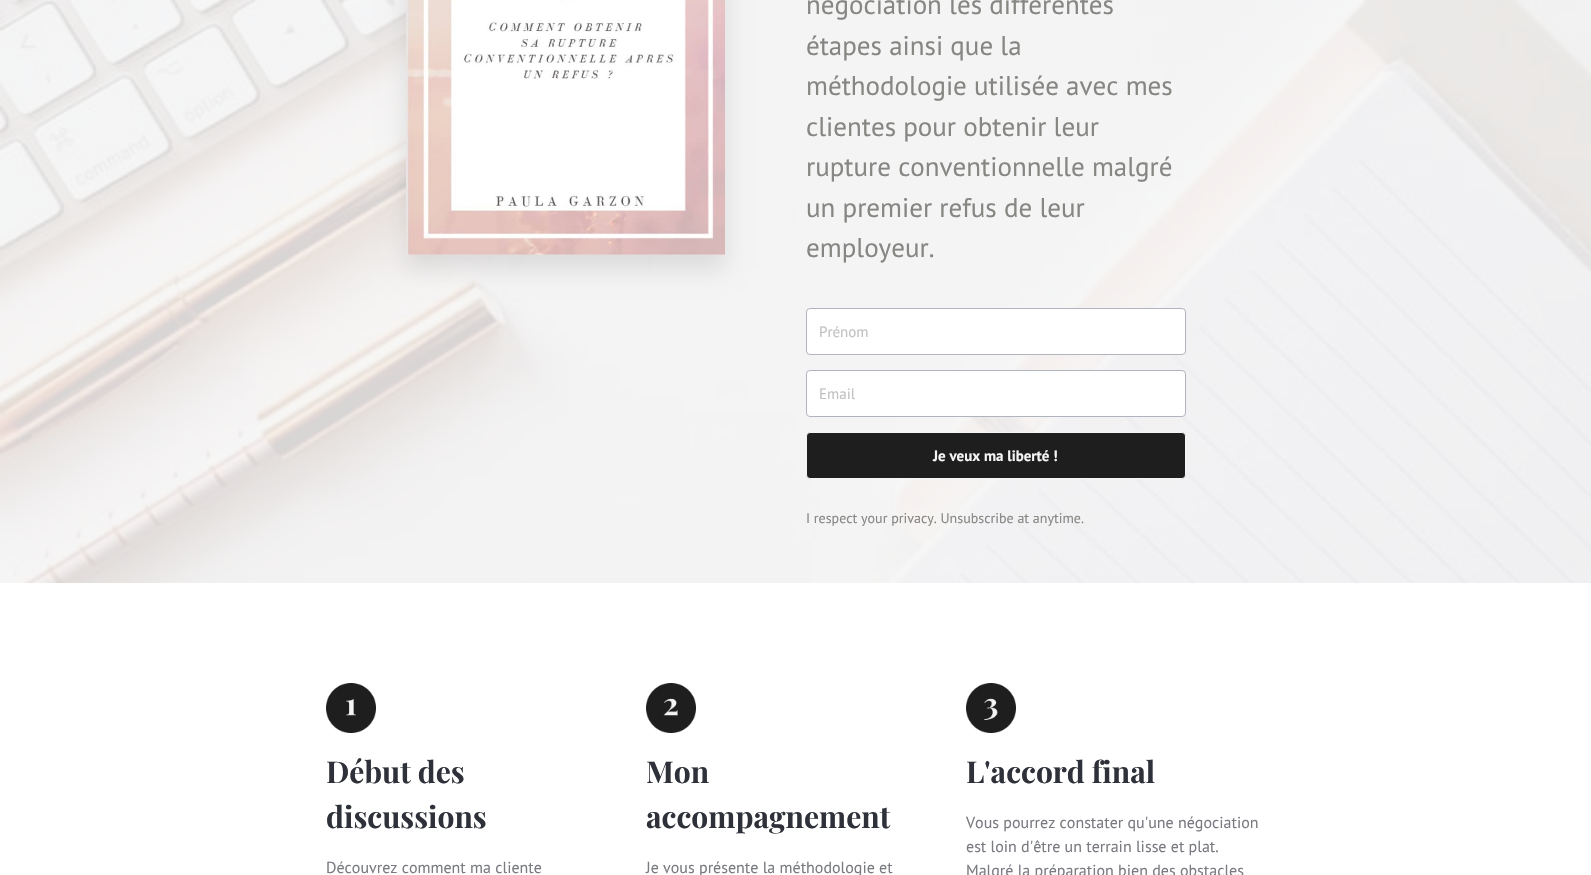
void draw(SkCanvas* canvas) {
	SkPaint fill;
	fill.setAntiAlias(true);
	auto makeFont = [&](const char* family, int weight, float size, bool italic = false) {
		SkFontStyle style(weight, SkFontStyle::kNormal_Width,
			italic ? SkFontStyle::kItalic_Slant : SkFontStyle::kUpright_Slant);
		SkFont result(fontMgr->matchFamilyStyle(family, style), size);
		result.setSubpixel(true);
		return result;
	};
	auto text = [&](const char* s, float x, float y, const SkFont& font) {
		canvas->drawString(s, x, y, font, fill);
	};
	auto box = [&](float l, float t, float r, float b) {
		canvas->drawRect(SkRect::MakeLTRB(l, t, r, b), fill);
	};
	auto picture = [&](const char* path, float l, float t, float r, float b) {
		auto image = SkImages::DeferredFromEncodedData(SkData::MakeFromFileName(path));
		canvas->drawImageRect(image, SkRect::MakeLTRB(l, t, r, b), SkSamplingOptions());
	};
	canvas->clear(0xFFFFFFFF);
	fill.setColor(0xFFF5F5F5);
	box(0, 0, 1591, 583);
	picture("image0.png", 0, 0, 1591, 583);
	fill.setColor(0x1A000000);
	fill.setMaskFilter(SkMaskFilter::MakeBlur(kNormal_SkBlurStyle, 11));
	canvas->drawRect(SkRect::MakeLTRB(406, -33, 725, 269), fill);
	fill.setMaskFilter(nullptr);
	picture("image1.png", 406, 0, 725, 255);
	fill.setColor(0xFFFFFFFF);
	canvas->drawRoundRect(SkRect::MakeLTRB(806.5f, 308.5f, 1185.5f, 354.5f), 3.5f, 3.5f, fill);
	fill.setStyle(SkPaint::kStroke_Style);
	fill.setStrokeWidth(1);
	fill.setColor(0xFFB0B4BE);
	canvas->drawRoundRect(SkRect::MakeLTRB(806.5f, 308.5f, 1185.5f, 354.5f), 3.5f, 3.5f, fill);
	fill.setStyle(SkPaint::kFill_Style);
	fill.setColor(0xFFFFFFFF);
	canvas->drawRoundRect(SkRect::MakeLTRB(806.5f, 370.5f, 1185.5f, 416.5f), 3.5f, 3.5f, fill);
	fill.setStyle(SkPaint::kStroke_Style);
	fill.setColor(0xFFB0B4BE);
	canvas->drawRoundRect(SkRect::MakeLTRB(806.5f, 370.5f, 1185.5f, 416.5f), 3.5f, 3.5f, fill);
	fill.setStyle(SkPaint::kFill_Style);
	fill.setColor(0xFF1E1E1E);
	canvas->drawRoundRect(SkRect::MakeLTRB(806.5f, 432.5f, 1185.5f, 478.5f), 3.5f, 3.5f, fill);
	fill.setStyle(SkPaint::kStroke_Style);
	fill.setColor(0xFFF5F5F5);
	canvas->drawRoundRect(SkRect::MakeLTRB(806.5f, 432.5f, 1185.5f, 478.5f), 3.5f, 3.5f, fill);
	picture("image2.png", 326, 683, 376, 733);
	picture("image3.png", 646, 683, 696, 733);
	picture("image4.png", 966, 683, 1016, 733);
	auto font1 = makeFont("PT Sans", 400, 27);
	fill.setStyle(SkPaint::kFill_Style);
	fill.setColor(0xFF868783);
	text("négociation les différentes", 806, 14, font1);
	text("étapes ainsi que la", 806, 55, font1);
	text("méthodologie utilisée avec mes", 806, 95, font1);
	text("clientes pour obtenir leur", 806, 136, font1);
	text("rupture conventionnelle malgré", 806, 176, font1);
	text("un premier refus de leur", 806, 217, font1);
	text("employeur.", 806, 257, font1);
	auto font2 = makeFont("PT Sans", 400, 15);
	fill.setColor(0xFFC1C1C1);
	text("Prénom", 819, 337, font2);
	text("Email", 819, 399, font2);
	auto font3 = makeFont("PT Sans", 700, 15);
	fill.setColor(0xFFF5F5F5);
	text("Je veux ma liberté !", 933, 461, font3);
	auto font4 = makeFont("PT Sans", 400, 14);
	fill.setColor(0xFF868783);
	text("I respect your privacy. Unsubscribe at anytime.", 806, 523, font4);
	auto font5 = makeFont("Playfair Display", 700, 30);
	fill.setColor(0xFF2E3139);
	text("Début des", 326, 783, font5);
	text("discussions", 326, 828, font5);
	auto font6 = makeFont("PT Sans", 400, 16);
	fill.setColor(0xFF797B81);
	text("Découvrez comment ma cliente", 326, 873, font6);
	fill.setColor(0xFF2E3139);
	text("Mon", 646, 783, font5);
	text("accompagnement", 646, 828, font5);
	fill.setColor(0xFF797B81);
	text("Je vous présente la méthodologie et", 646, 873, font6);
	fill.setColor(0xFF2E3139);
	text("L'accord final", 966, 783, font5);
	fill.setColor(0xFF797B81);
	text("Vous pourrez constater qu'une négociation", 966, 828, font6);
	text("est loin d'être un terrain lisse et plat.", 966, 852, font6);
	text("Malgré la préparation bien des obstacles", 966, 876, font6);
}
